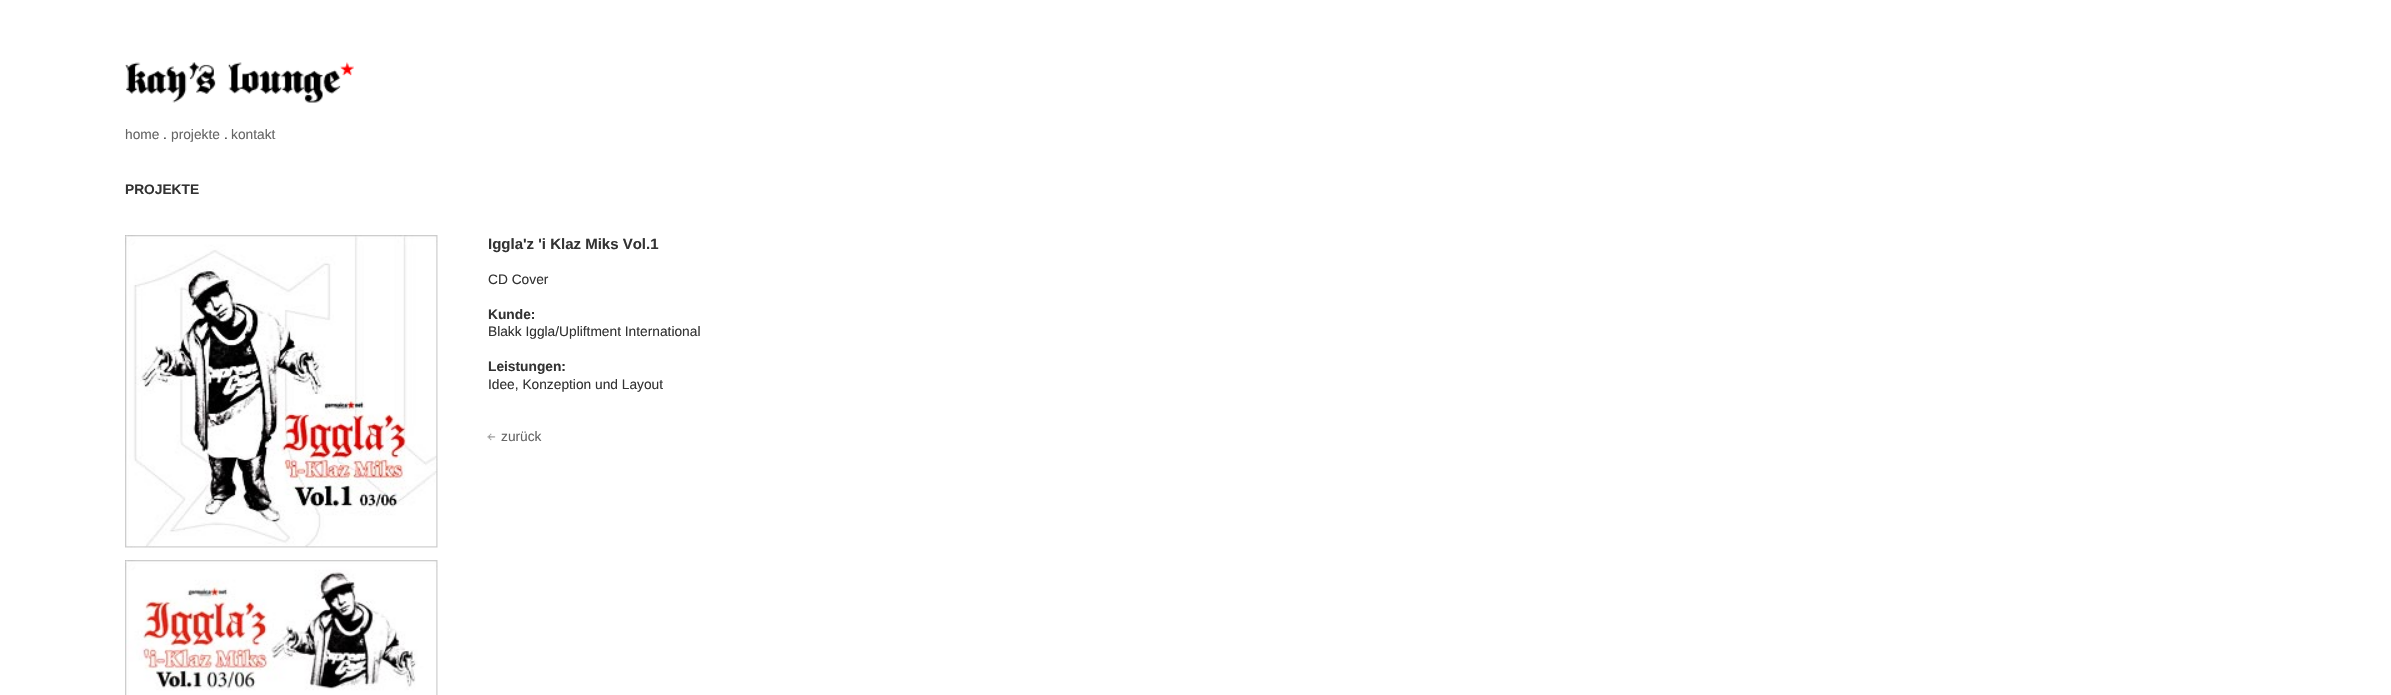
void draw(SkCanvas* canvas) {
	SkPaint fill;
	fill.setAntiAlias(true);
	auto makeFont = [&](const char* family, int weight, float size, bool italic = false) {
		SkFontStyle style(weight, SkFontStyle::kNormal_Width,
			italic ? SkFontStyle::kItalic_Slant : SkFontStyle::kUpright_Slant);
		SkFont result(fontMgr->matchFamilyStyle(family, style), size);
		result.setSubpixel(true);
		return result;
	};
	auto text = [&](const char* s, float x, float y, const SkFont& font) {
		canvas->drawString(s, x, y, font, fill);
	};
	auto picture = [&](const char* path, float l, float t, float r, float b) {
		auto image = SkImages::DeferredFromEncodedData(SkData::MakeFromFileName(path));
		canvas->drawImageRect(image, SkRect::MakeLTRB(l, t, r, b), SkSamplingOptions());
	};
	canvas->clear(0xFFFFFFFF);
	picture("image0.png", 125, 62, 354, 103);
	picture("image1.png", 125, 235, 438, 548);
	picture("image2.png", 125, 560, 438, 695);
	picture("image3.png", 487, 433, 496, 441);
	auto font1 = makeFont("Liberation Sans", 400, 13.75f);
	fill.setColor(0xFF666666);
	text("home", 125, 139, font1);
	fill.setColor(0xFF333333);
	text(".", 163, 139, font1);
	fill.setColor(0xFF666666);
	text("projekte", 171, 139, font1);
	fill.setColor(0xFF333333);
	text(".", 224, 139, font1);
	fill.setColor(0xFF666666);
	text("kontakt", 231, 139, font1);
	auto font2 = makeFont("Liberation Sans", 700, 13.75f);
	fill.setColor(0xFF333333);
	text("PROJEKTE", 125, 194, font2);
	auto font3 = makeFont("Liberation Sans", 700, 15);
	text("Iggla'z 'i Klaz Miks Vol.1", 488, 249, font3);
	text("CD Cover", 488, 284, font1);
	text("Kunde:", 488, 319, font2);
	text("Blakk Iggla/Upliftment International", 488, 336, font1);
	text("Leistungen:", 488, 371, font2);
	text("Idee, Konzeption und Layout", 488, 389, font1);
	fill.setColor(0xFF666666);
	text("zurück", 501, 441, font1);
}
